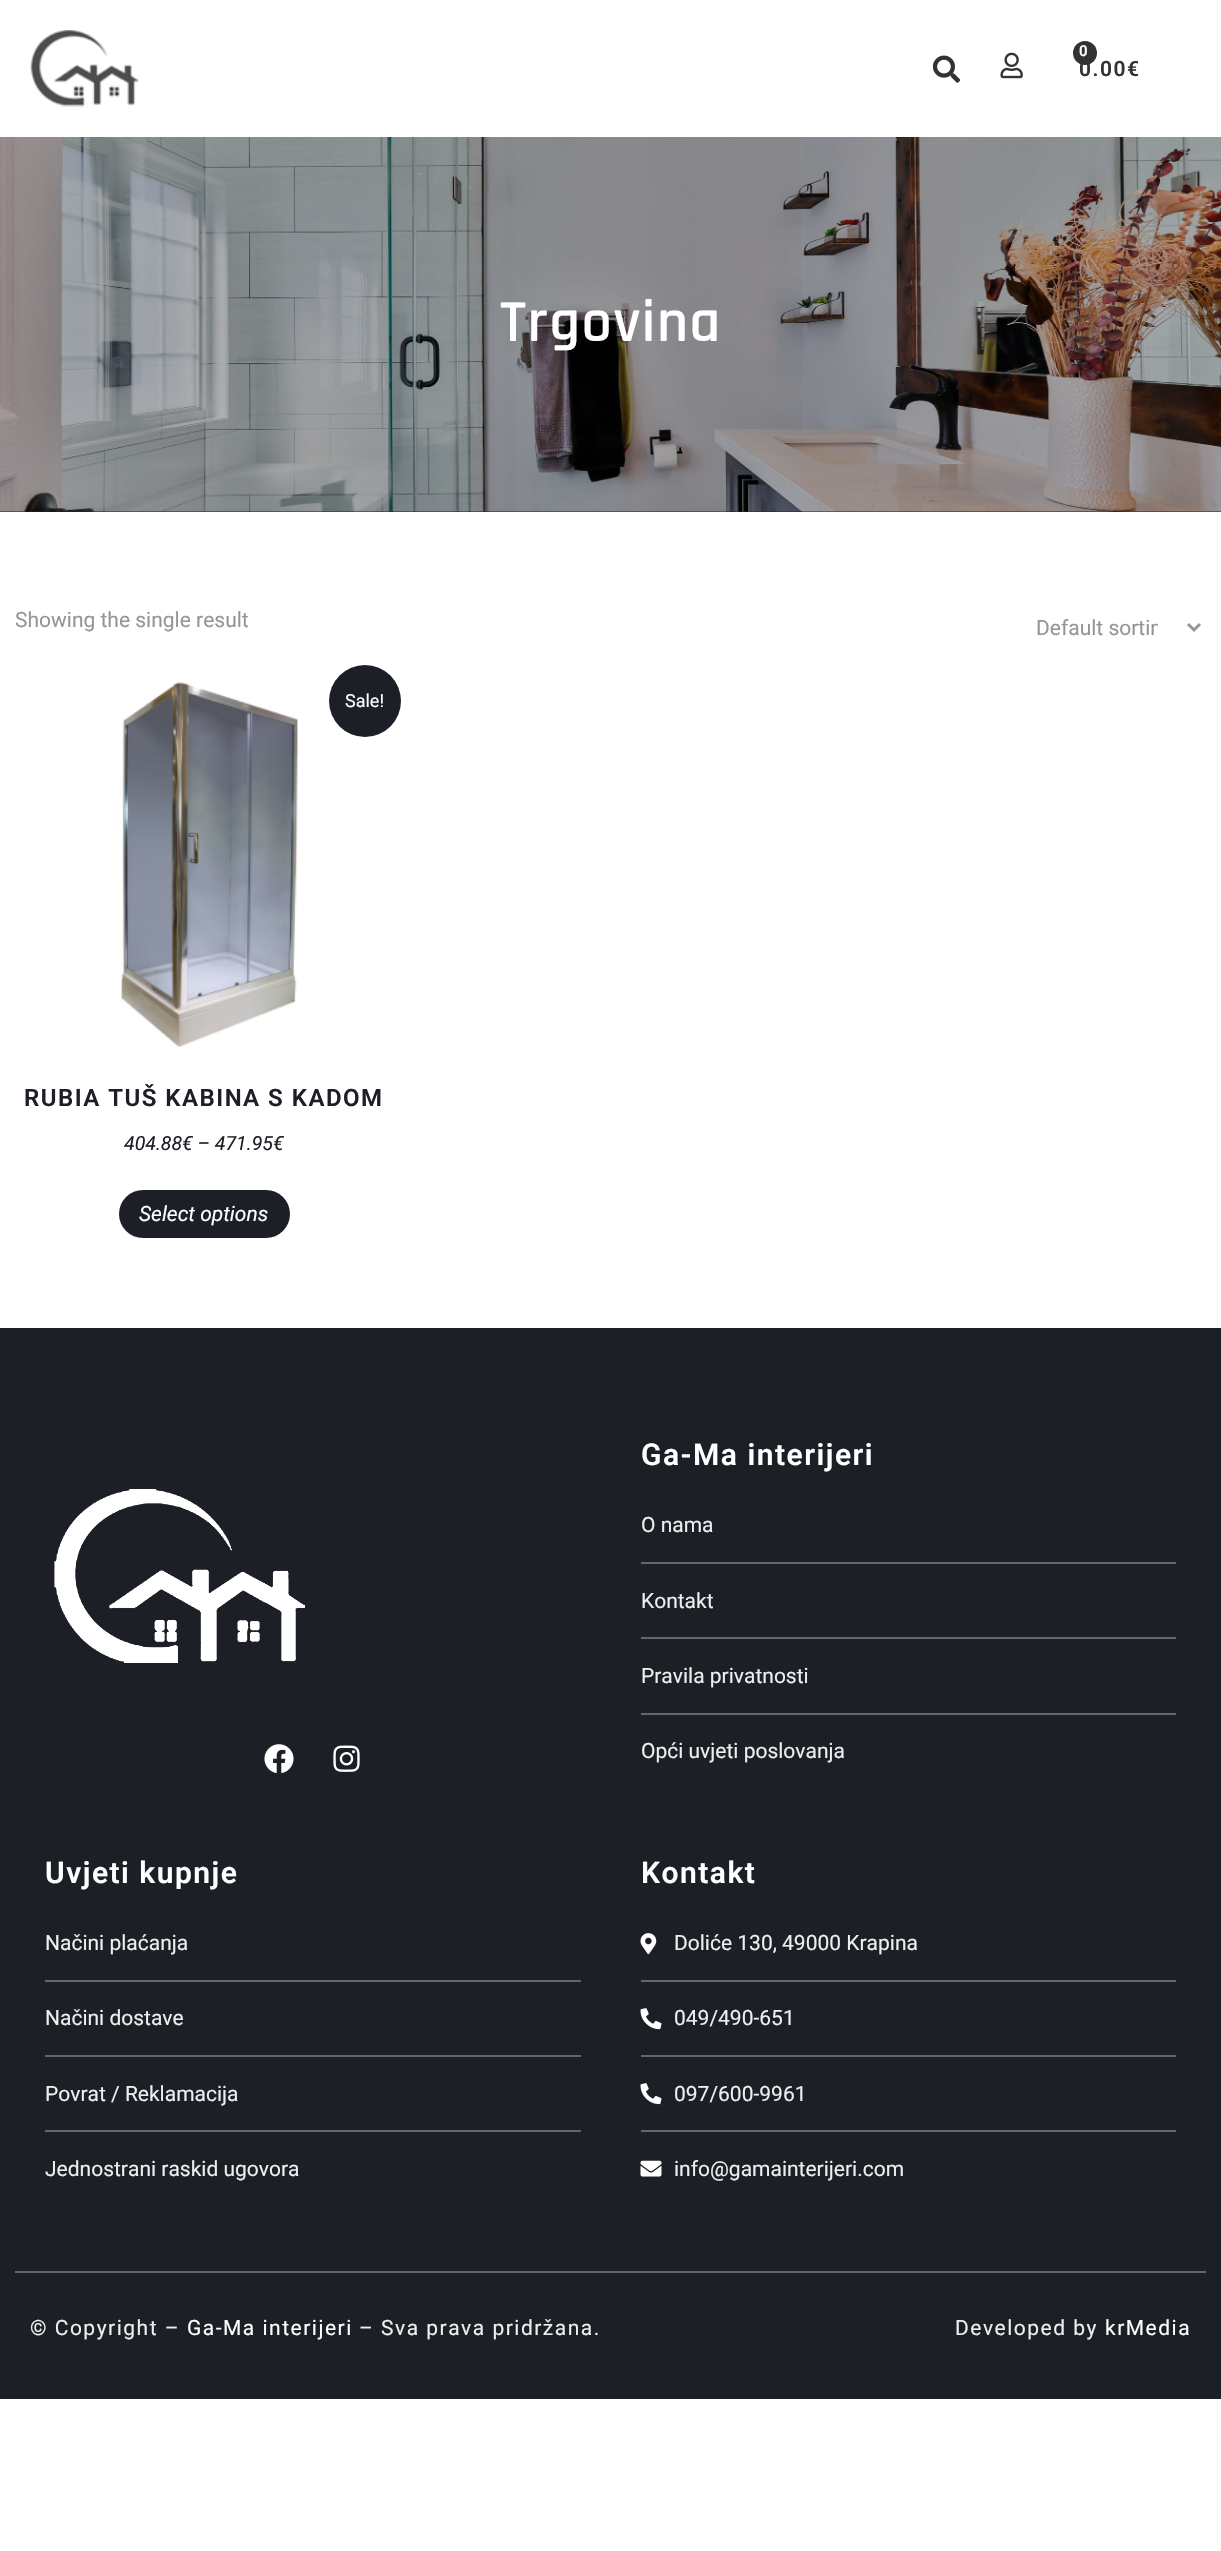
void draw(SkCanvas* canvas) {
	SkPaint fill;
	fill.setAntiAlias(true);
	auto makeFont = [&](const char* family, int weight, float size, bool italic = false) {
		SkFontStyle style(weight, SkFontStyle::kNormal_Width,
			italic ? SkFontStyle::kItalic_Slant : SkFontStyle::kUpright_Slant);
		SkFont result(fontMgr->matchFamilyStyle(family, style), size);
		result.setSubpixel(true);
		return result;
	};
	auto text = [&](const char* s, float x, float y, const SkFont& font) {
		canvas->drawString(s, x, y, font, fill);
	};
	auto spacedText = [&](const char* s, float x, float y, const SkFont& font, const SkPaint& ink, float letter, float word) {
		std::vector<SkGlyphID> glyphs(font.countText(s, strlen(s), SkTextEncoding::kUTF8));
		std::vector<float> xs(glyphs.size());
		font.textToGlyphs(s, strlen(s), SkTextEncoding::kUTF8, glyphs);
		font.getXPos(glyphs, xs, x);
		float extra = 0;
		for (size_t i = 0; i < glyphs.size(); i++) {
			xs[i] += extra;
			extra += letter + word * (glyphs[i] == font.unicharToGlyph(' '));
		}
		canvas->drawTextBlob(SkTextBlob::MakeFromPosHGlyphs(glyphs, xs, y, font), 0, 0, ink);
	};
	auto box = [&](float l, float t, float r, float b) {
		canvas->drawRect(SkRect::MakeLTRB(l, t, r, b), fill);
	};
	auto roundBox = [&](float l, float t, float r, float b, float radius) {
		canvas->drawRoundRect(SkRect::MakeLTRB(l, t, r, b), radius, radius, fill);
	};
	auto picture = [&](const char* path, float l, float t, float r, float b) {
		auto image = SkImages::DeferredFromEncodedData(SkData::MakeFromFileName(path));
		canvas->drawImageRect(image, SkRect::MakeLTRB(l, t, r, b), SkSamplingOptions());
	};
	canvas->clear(0xFFFFFFFF);
	picture("image0.png", 30, 30, 139, 107);
	picture("image1.png", 932, 55, 961, 83);
	picture("image2.png", 1000, 52, 1023, 79);
	fill.setColor(0xFF333333);
	canvas->drawCircle(1085, 53, 12, fill);
	fill.setColor(0xFF242424);
	box(0, 511, 1221, 512);
	picture("image3.png", 0, 137, 1221, 512);
	fill.setStyle(SkPaint::kStroke_Style);
	fill.setStrokeWidth(3);
	fill.setColor(0xFF939598);
	canvas->drawPath(SkPathBuilder().moveTo(1188, 624).lineTo(1194, 630).lineTo(1200, 624).detach(), fill);
	picture("image4.png", 121, 682, 298, 1047);
	fill.setStyle(SkPaint::kFill_Style);
	fill.setColor(0xFF1C1F26);
	canvas->drawCircle(365, 701, 36, fill);
	roundBox(119, 1190, 290, 1238, 24);
	box(0, 1328, 1221, 2399);
	picture("image5.png", 54, 1489, 305, 1663);
	picture("image6.png", 264, 1744, 294, 1774);
	picture("image7.png", 333, 1745, 360, 1772);
	fill.setColor(0xFF666666);
	box(641, 1562, 1176, 1564);
	box(641, 1637, 1176, 1639);
	box(641, 1713, 1176, 1715);
	box(45, 1980, 581, 1982);
	box(45, 2055, 581, 2057);
	box(45, 2130, 581, 2132);
	picture("image8.png", 640, 1933, 657, 1955);
	box(641, 1980, 1176, 1982);
	picture("image9.png", 640, 2008, 662, 2030);
	box(641, 2055, 1176, 2057);
	picture("image9.png", 640, 2083, 662, 2105);
	box(641, 2130, 1176, 2132);
	picture("image10.png", 640, 2160, 662, 2177);
	box(15, 2271, 1206, 2273);
	auto font1 = makeFont("Roboto", 600, 15);
	fill.setColor(0xFFFFFFFF);
	spacedText("0", 1079, 56, font1, fill, 1.5f, 0);
	auto font2 = makeFont("Roboto", 600, 21);
	fill.setColor(0xFF333333);
	spacedText("0.00€", 1079, 76, font2, fill, 1.5f, 0);
	auto font3 = makeFont("Rajdhani", 600, 60);
	fill.setColor(0xFFFFFFFF);
	spacedText("Trgovina", 500, 341, font3, fill, 1.5f, 0);
	auto font4 = makeFont("Roboto", 400, 21);
	fill.setColor(0xFF939598);
	text("Showing the single result", 15, 627, font4);
	canvas->save();
	canvas->clipRect(SkRect::MakeLTRB(1037, 614, 1158, 641));
	text("Default sortin", 1036, 635, font4);
	canvas->restore();
	auto font5 = makeFont("Roboto", 400, 18);
	fill.setColor(0xFFFFFFFF);
	text("Sale!", 345, 707, font5);
	auto font6 = makeFont("Roboto", 600, 24);
	fill.setColor(0xFF1C1F26);
	spacedText("RUBIA TUŠ KABINA S KADOM", 24, 1106, font6, fill, 1.5f, 0);
	auto font7 = makeFont("Roboto", 400, 19.5f, true);
	text("404.88€ – 471.95€", 124, 1150, font7);
	auto font8 = makeFont("Roboto", 400, 21, true);
	fill.setColor(0xFFFFFFFF);
	text("Select options", 139, 1221, font8);
	auto font9 = makeFont("Roboto", 600, 30);
	spacedText("Ga-Ma interijeri", 641, 1465, font9, fill, 1.5f, 0);
	fill.setColor(0xFFEEEEEE);
	text("O nama", 641, 1532, font4);
	text("Kontakt", 641, 1608, font4);
	text("Pravila privatnosti", 641, 1683, font4);
	text("Opći uvjeti poslovanja", 641, 1758, font4);
	fill.setColor(0xFFFFFFFF);
	spacedText("Uvjeti kupnje", 45, 1883, font9, fill, 1.5f, 0);
	fill.setColor(0xFFEEEEEE);
	text("Načini plaćanja", 45, 1950, font4);
	text("Načini dostave", 45, 2025, font4);
	text("Povrat / Reklamacija", 45, 2101, font4);
	text("Jednostrani raskid ugovora", 45, 2176, font4);
	fill.setColor(0xFFFFFFFF);
	spacedText("Kontakt", 641, 1883, font9, fill, 1.5f, 0);
	fill.setColor(0xFFEEEEEE);
	text("Doliće 130, 49000 Krapina", 674, 1950, font4);
	text("049/490-651", 674, 2025, font4);
	text("097/600-9961", 674, 2101, font4);
	text("info@gamainterijeri.com", 674, 2176, font4);
	spacedText("© Copyright –", 30, 2335, font4, fill, 1.5f, 0);
	fill.setColor(0xFFFFFFFF);
	spacedText("Ga-Ma interijeri", 187, 2335, font4, fill, 1.5f, 0);
	fill.setColor(0xFFEEEEEE);
	spacedText("– Sva prava pridržana.", 359, 2335, font4, fill, 1.5f, 0);
	spacedText("Developed by", 955, 2335, font4, fill, 1.5f, 0);
	fill.setColor(0xFFFFFFFF);
	spacedText("krMedia", 1105, 2335, font4, fill, 1.5f, 0);
}
